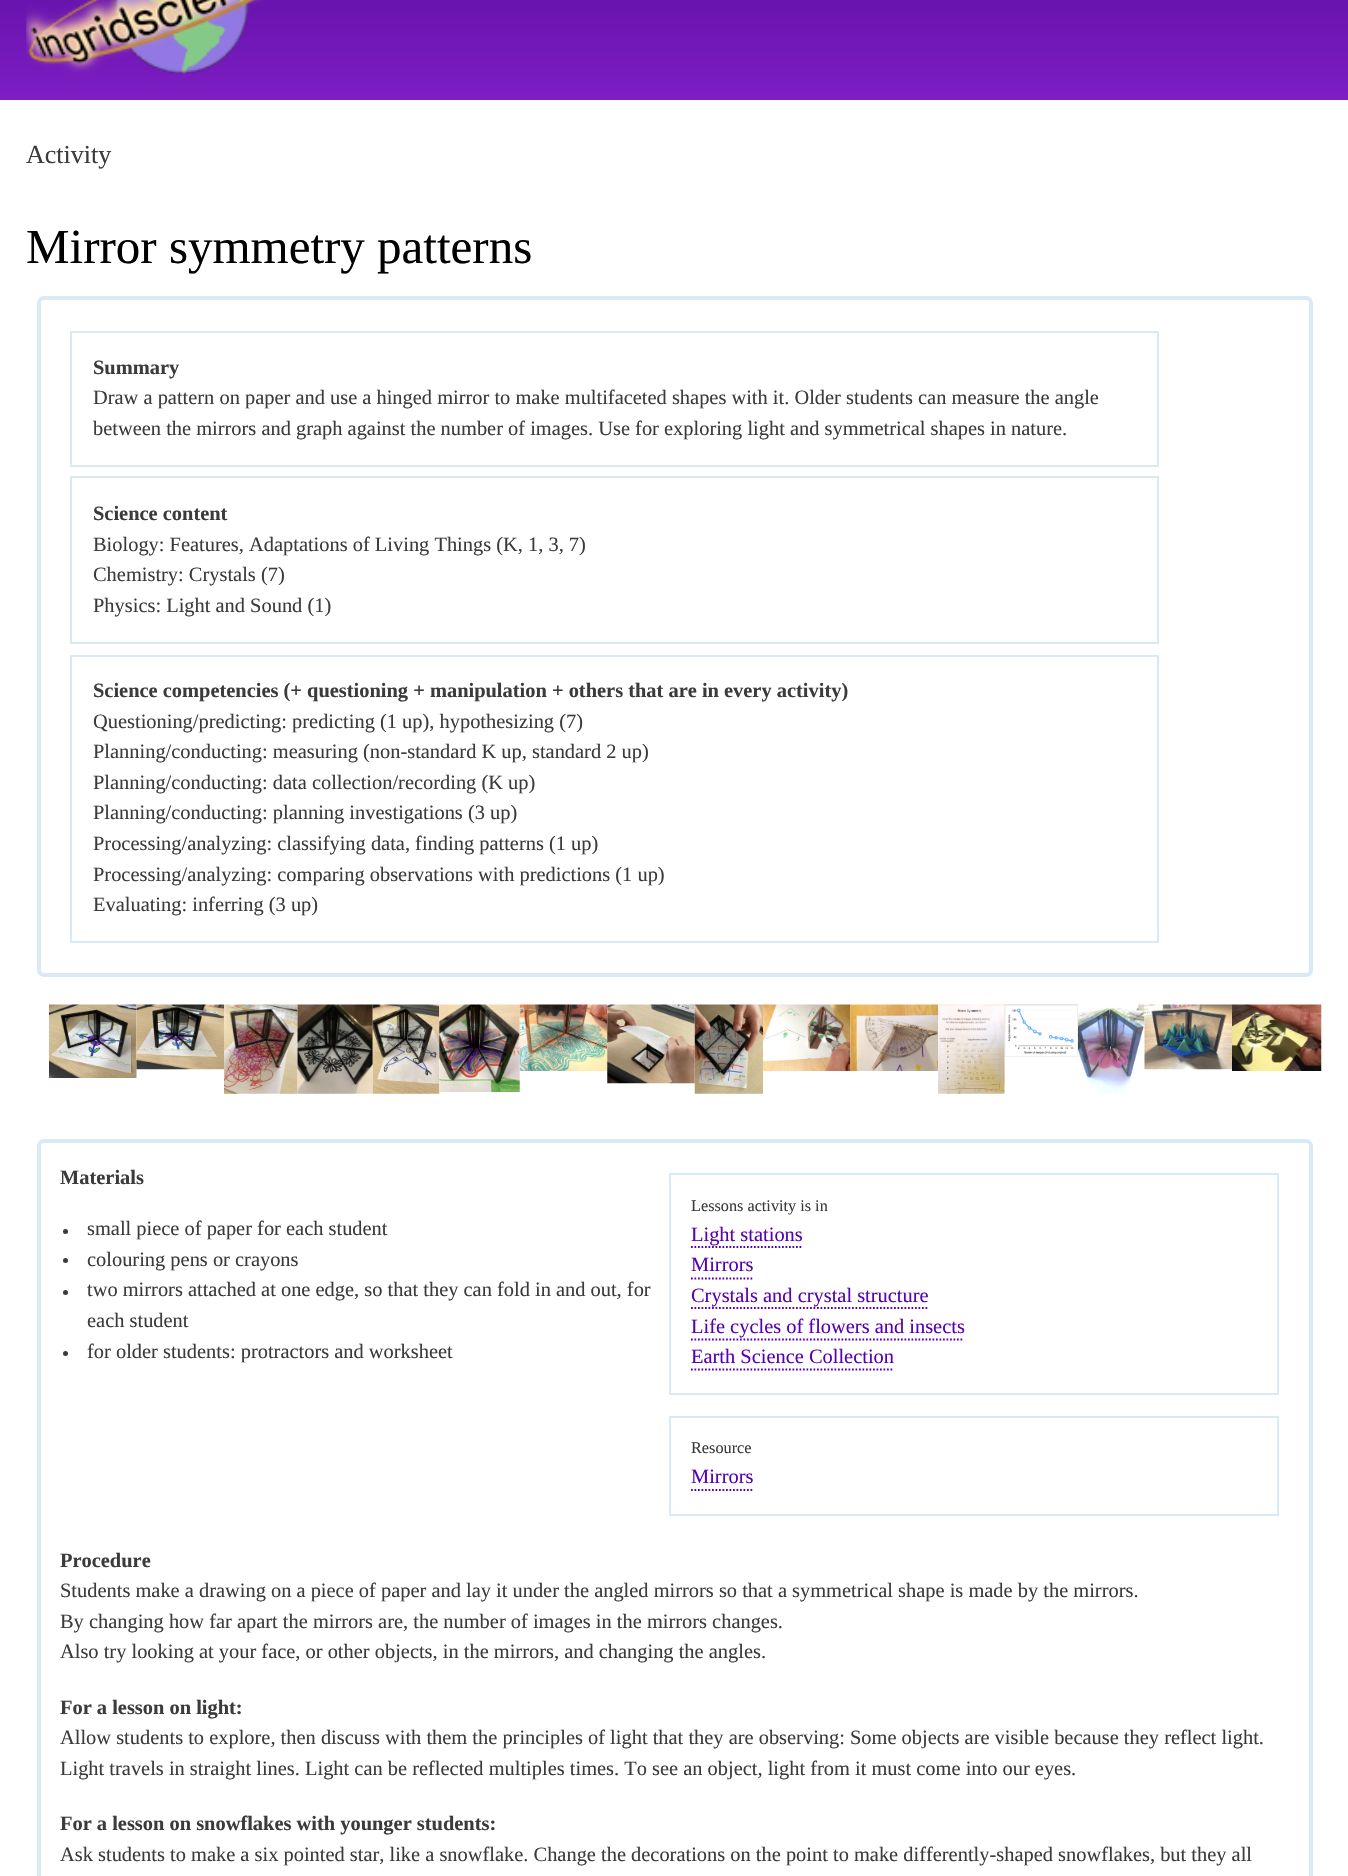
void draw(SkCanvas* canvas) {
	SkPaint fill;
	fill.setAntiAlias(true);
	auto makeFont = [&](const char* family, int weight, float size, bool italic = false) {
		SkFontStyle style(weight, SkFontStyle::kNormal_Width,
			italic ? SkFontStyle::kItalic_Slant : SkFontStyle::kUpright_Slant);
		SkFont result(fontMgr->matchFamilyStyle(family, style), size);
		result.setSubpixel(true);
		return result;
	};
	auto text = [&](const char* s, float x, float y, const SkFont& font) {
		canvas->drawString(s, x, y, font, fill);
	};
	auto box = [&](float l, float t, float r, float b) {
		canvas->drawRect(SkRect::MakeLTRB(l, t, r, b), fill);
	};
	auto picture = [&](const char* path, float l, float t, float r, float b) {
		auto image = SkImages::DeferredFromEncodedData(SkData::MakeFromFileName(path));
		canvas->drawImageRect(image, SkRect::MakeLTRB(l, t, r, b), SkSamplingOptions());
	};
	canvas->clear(0xFFFFFFFF);
	{
		const SkColor colors[] = {0xFF45058E, 0xFF7E1DC3};
		const float stops[] = {0, 1};
		const SkPoint ends[] = {{675, -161}, {675, 100}};
		fill.setShader(SkGradientShader::MakeLinear(ends, colors, stops, 2, SkTileMode::kClamp));
		fill.setAlpha(255);
	}
	box(0, 0, 1348, 100);
	picture("image0.png", 26, 0, 263, 74);
	fill.setStyle(SkPaint::kStroke_Style);
	fill.setStrokeWidth(4);
	fill.setShader(nullptr);
	fill.setColor(0xFFD9EAF5);
	canvas->drawRoundRect(SkRect::MakeLTRB(39, 298, 1311, 975), 5, 5, fill);
	fill.setStrokeWidth(2);
	canvas->drawRect(SkRect::MakeLTRB(71, 332, 1158, 466), fill);
	canvas->drawRect(SkRect::MakeLTRB(71, 477, 1158, 643), fill);
	canvas->drawRect(SkRect::MakeLTRB(71, 656, 1158, 942), fill);
	picture("image1.png", 49, 1004, 137, 1078);
	picture("image2.png", 136, 1004, 224, 1070);
	picture("image3.png", 224, 1004, 298, 1094);
	picture("image4.png", 297, 1004, 373, 1094);
	picture("image5.png", 372, 1004, 440, 1094);
	picture("image6.png", 439, 1004, 520, 1092);
	picture("image7.png", 519, 1004, 608, 1071);
	picture("image8.png", 607, 1004, 695, 1084);
	picture("image9.png", 694, 1004, 763, 1094);
	picture("image10.png", 763, 1004, 851, 1071);
	picture("image11.png", 850, 1004, 938, 1071);
	picture("image12.png", 938, 1004, 1005, 1094);
	picture("image13.png", 1004, 1004, 1078, 1057);
	picture("image14.png", 1078, 1004, 1145, 1094);
	picture("image15.png", 1144, 1004, 1232, 1070);
	picture("image16.png", 1232, 1004, 1322, 1071);
	fill.setStrokeWidth(4);
	canvas->drawRoundRect(SkRect::MakeLTRB(39, 1141, 1311, 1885), 5, 5, fill);
	fill.setStyle(SkPaint::kFill_Style);
	fill.setColor(0xFF3B3B3B);
	canvas->drawCircle(65.5f, 1231.5f, 2.5f, fill);
	canvas->drawCircle(65.5f, 1260.5f, 2.5f, fill);
	canvas->drawCircle(65.5f, 1292.5f, 2.5f, fill);
	canvas->drawCircle(65.5f, 1353.5f, 2.5f, fill);
	fill.setStyle(SkPaint::kStroke_Style);
	fill.setStrokeWidth(2);
	fill.setColor(0xFFD9EAF5);
	canvas->drawRect(SkRect::MakeLTRB(670, 1174, 1278, 1394), fill);
	fill.setStrokeWidth(1.8f);
	fill.setColor(0xFF5800B3);
	fill.setPathEffect(SkDashPathEffect::Make({{1.75f, 1.75f}}, 0));
	canvas->drawPath(SkPathBuilder().moveTo(691, 1247).lineTo(803, 1247).detach(), fill);
	fill.setPathEffect(nullptr);
	fill.setPathEffect(SkDashPathEffect::Make({{1.75f, 1.75f}}, 0));
	canvas->drawPath(SkPathBuilder().moveTo(691, 1278.5f).lineTo(754, 1278.5f).detach(), fill);
	fill.setPathEffect(nullptr);
	fill.setPathEffect(SkDashPathEffect::Make({{1.75f, 1.75f}}, 0));
	canvas->drawPath(SkPathBuilder().moveTo(691, 1308).lineTo(929, 1308).detach(), fill);
	fill.setPathEffect(nullptr);
	fill.setPathEffect(SkDashPathEffect::Make({{1.75f, 1.75f}}, 0));
	canvas->drawPath(SkPathBuilder().moveTo(691, 1339.5f).lineTo(964, 1339.5f).detach(), fill);
	fill.setPathEffect(nullptr);
	fill.setPathEffect(SkDashPathEffect::Make({{1.75f, 1.75f}}, 0));
	canvas->drawPath(SkPathBuilder().moveTo(691, 1369.5f).lineTo(894, 1369.5f).detach(), fill);
	fill.setPathEffect(nullptr);
	fill.setStrokeWidth(2);
	fill.setColor(0xFFD9EAF5);
	canvas->drawRect(SkRect::MakeLTRB(670, 1417, 1278, 1515), fill);
	fill.setStrokeWidth(1.8f);
	fill.setColor(0xFF5800B3);
	fill.setPathEffect(SkDashPathEffect::Make({{1.75f, 1.75f}}, 0));
	canvas->drawPath(SkPathBuilder().moveTo(691, 1490).lineTo(754, 1490).detach(), fill);
	fill.setPathEffect(nullptr);
	auto font1 = makeFont("Liberation Serif", 400, 26);
	fill.setStyle(SkPaint::kFill_Style);
	fill.setColor(0xFF3B3B3B);
	text("Activity", 26, 163, font1);
	auto font2 = makeFont("Liberation Serif", 400, 49);
	fill.setColor(0xFF000000);
	text("Mirror symmetry patterns", 26, 263, font2);
	auto font3 = makeFont("Liberation Serif", 700, 20.42f);
	fill.setColor(0xFF3B3B3B);
	text("Summary", 93, 374, font3);
	auto font4 = makeFont("Liberation Serif", 400, 20.42f);
	text("Draw a pattern on paper and use a hinged mirror to make multifaceted shapes with it. Older students can measure the angle", 93, 404, font4);
	text("between the mirrors and graph against the number of images. Use for exploring light and symmetrical shapes in nature.", 93, 435, font4);
	text("Science content", 93, 520, font3);
	text("Biology: Features, Adaptations of Living Things (K, 1, 3, 7)", 93, 551, font4);
	text("Chemistry: Crystals (7)", 93, 581, font4);
	text("Physics: Light and Sound (1)", 93, 612, font4);
	text("Science competencies (+ questioning + manipulation + others that are in every activity)", 93, 697, font3);
	text("Questioning/predicting: predicting (1 up), hypothesizing (7)", 93, 728, font4);
	text("Planning/conducting: measuring (non-standard K up, standard 2 up)", 93, 758, font4);
	text("Planning/conducting: data collection/recording (K up)", 93, 789, font4);
	text("Planning/conducting: planning investigations (3 up)", 93, 819, font4);
	text("Processing/analyzing: classifying data, finding patterns (1 up)", 93, 850, font4);
	text("Processing/analyzing: comparing observations with predictions (1 up)", 93, 881, font4);
	text("Evaluating: inferring (3 up)", 93, 911, font4);
	text("Materials", 60, 1184, font3);
	text("small piece of paper for each student", 87, 1235, font4);
	text("colouring pens or crayons", 87, 1266, font4);
	text("two mirrors attached at one edge, so that they can fold in and out, for", 87, 1296, font4);
	text("each student", 87, 1327, font4);
	text("for older students: protractors and worksheet", 87, 1358, font4);
	auto font5 = makeFont("Liberation Serif", 400, 16.25f);
	text("Lessons activity is in", 691, 1211, font5);
	fill.setColor(0xFF5800B3);
	text("Light stations", 691, 1241, font4);
	text("Mirrors", 691, 1271, font4);
	text("Crystals and crystal structure", 691, 1302, font4);
	text("Life cycles of flowers and insects", 691, 1333, font4);
	text("Earth Science Collection", 691, 1363, font4);
	fill.setColor(0xFF3B3B3B);
	text("Resource", 691, 1453, font5);
	fill.setColor(0xFF5800B3);
	text("Mirrors", 691, 1483, font4);
	fill.setColor(0xFF3B3B3B);
	text("Procedure", 60, 1567, font3);
	text("Students make a drawing on a piece of paper and lay it under the angled mirrors so that a symmetrical shape is made by the mirrors.", 60, 1597, font4);
	text("By changing how far apart the mirrors are, the number of images in the mirrors changes.", 60, 1628, font4);
	text("Also try looking at your face, or other objects, in the mirrors, and changing the angles.", 60, 1658, font4);
	text("For a lesson on light:", 60, 1714, font3);
	text("Allow students to explore, then discuss with them the principles of light that they are observing: Some objects are visible because they reflect light.", 60, 1744, font4);
	text("Light travels in straight lines. Light can be reflected multiples times. To see an object, light from it must come into our eyes.", 60, 1775, font4);
	text("For a lesson on snowflakes with younger students:", 60, 1830, font3);
	text("Ask students to make a six pointed star, like a snowflake. Change the decorations on the point to make differently-shaped snowflakes, but they all", 60, 1861, font4);
}
